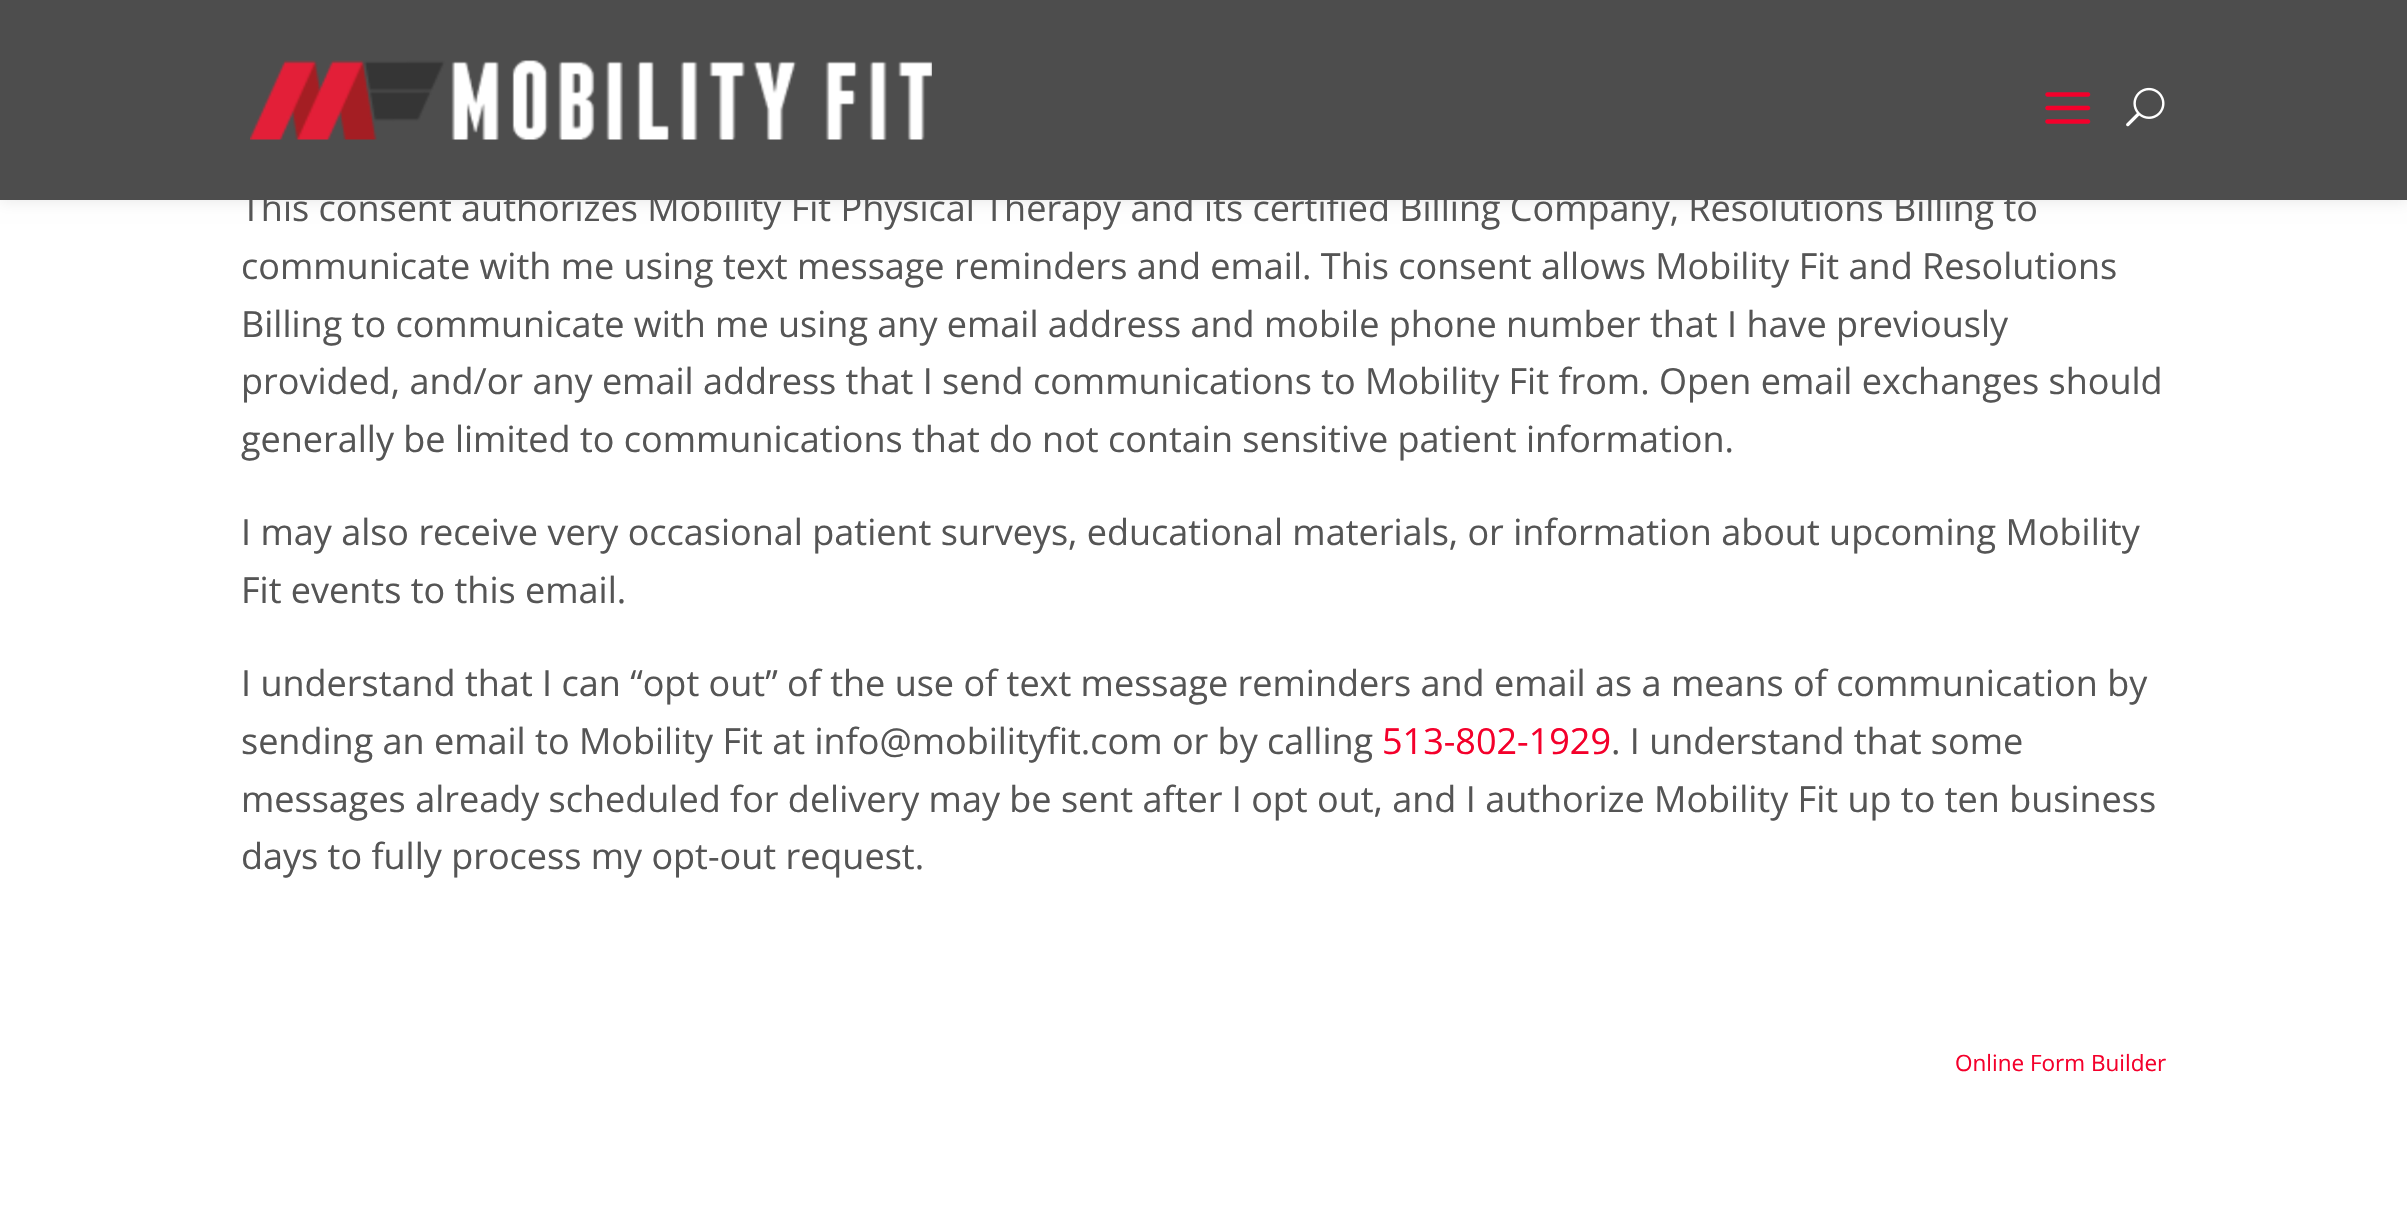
void draw(SkCanvas* canvas) {
	SkPaint fill;
	fill.setAntiAlias(true);
	auto makeFont = [&](const char* family, int weight, float size, bool italic = false) {
		SkFontStyle style(weight, SkFontStyle::kNormal_Width,
			italic ? SkFontStyle::kItalic_Slant : SkFontStyle::kUpright_Slant);
		SkFont result(fontMgr->matchFamilyStyle(family, style), size);
		result.setSubpixel(true);
		return result;
	};
	auto text = [&](const char* s, float x, float y, const SkFont& font) {
		canvas->drawString(s, x, y, font, fill);
	};
	auto box = [&](float l, float t, float r, float b) {
		canvas->drawRect(SkRect::MakeLTRB(l, t, r, b), fill);
	};
	auto picture = [&](const char* path, float l, float t, float r, float b) {
		auto image = SkImages::DeferredFromEncodedData(SkData::MakeFromFileName(path));
		canvas->drawImageRect(image, SkRect::MakeLTRB(l, t, r, b), SkSamplingOptions());
	};
	canvas->clear(0xFFFFFFFF);
	fill.setColor(0x1A000000);
	fill.setMaskFilter(SkMaskFilter::MakeBlur(kNormal_SkBlurStyle, 8));
	canvas->drawRect(SkRect::MakeLTRB(0, 0, 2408, 200), fill);
	fill.setMaskFilter(nullptr);
	auto font1 = makeFont("Open Sans", 400, 36);
	fill.setColor(0xFF555555);
	text("This consent authorizes Mobility Fit Physical Therapy and its certified Billing Company, Resolutions Billing to", 241, 221, font1);
	fill.setColor(0xFF4D4D4D);
	box(0, 0, 2407, 200);
	picture("image1.png", 2045, 92, 2091, 124);
	picture("image2.png", 2126, 87, 2165, 127);
	picture("image0.png", 250, 60, 932, 140);
	fill.setColor(0xFF555555);
	text("communicate with me using text message reminders and email. This consent allows Mobility Fit and Resolutions", 241, 279, font1);
	text("Billing to communicate with me using any email address and mobile phone number that I have previously", 241, 337, font1);
	text("provided, and/or any email address that I send communications to Mobility Fit from. Open email exchanges should", 241, 394, font1);
	text("generally be limited to communications that do not contain sensitive patient information.", 241, 452, font1);
	text("I may also receive very occasional patient surveys, educational materials, or information about upcoming Mobility", 241, 545, font1);
	text("Fit events to this email.", 241, 603, font1);
	text("I understand that I can “opt out” of the use of text message reminders and email as a means of communication by", 241, 696, font1);
	text("sending an email to Mobility Fit at info@mobilityfit.com or by calling", 241, 754, font1);
	fill.setColor(0xFFF4002B);
	text("513-802-1929", 1382, 754, font1);
	fill.setColor(0xFF555555);
	text(". I understand that some", 1611, 754, font1);
	text("messages already scheduled for delivery may be sent after I opt out, and I authorize Mobility Fit up to ten business", 241, 812, font1);
	text("days to fully process my opt-out request.", 241, 869, font1);
	auto font2 = makeFont("Open Sans", 400, 22.5f);
	fill.setColor(0xFFF4002B);
	text("Online Form Builder", 1955, 1071, font2);
}
